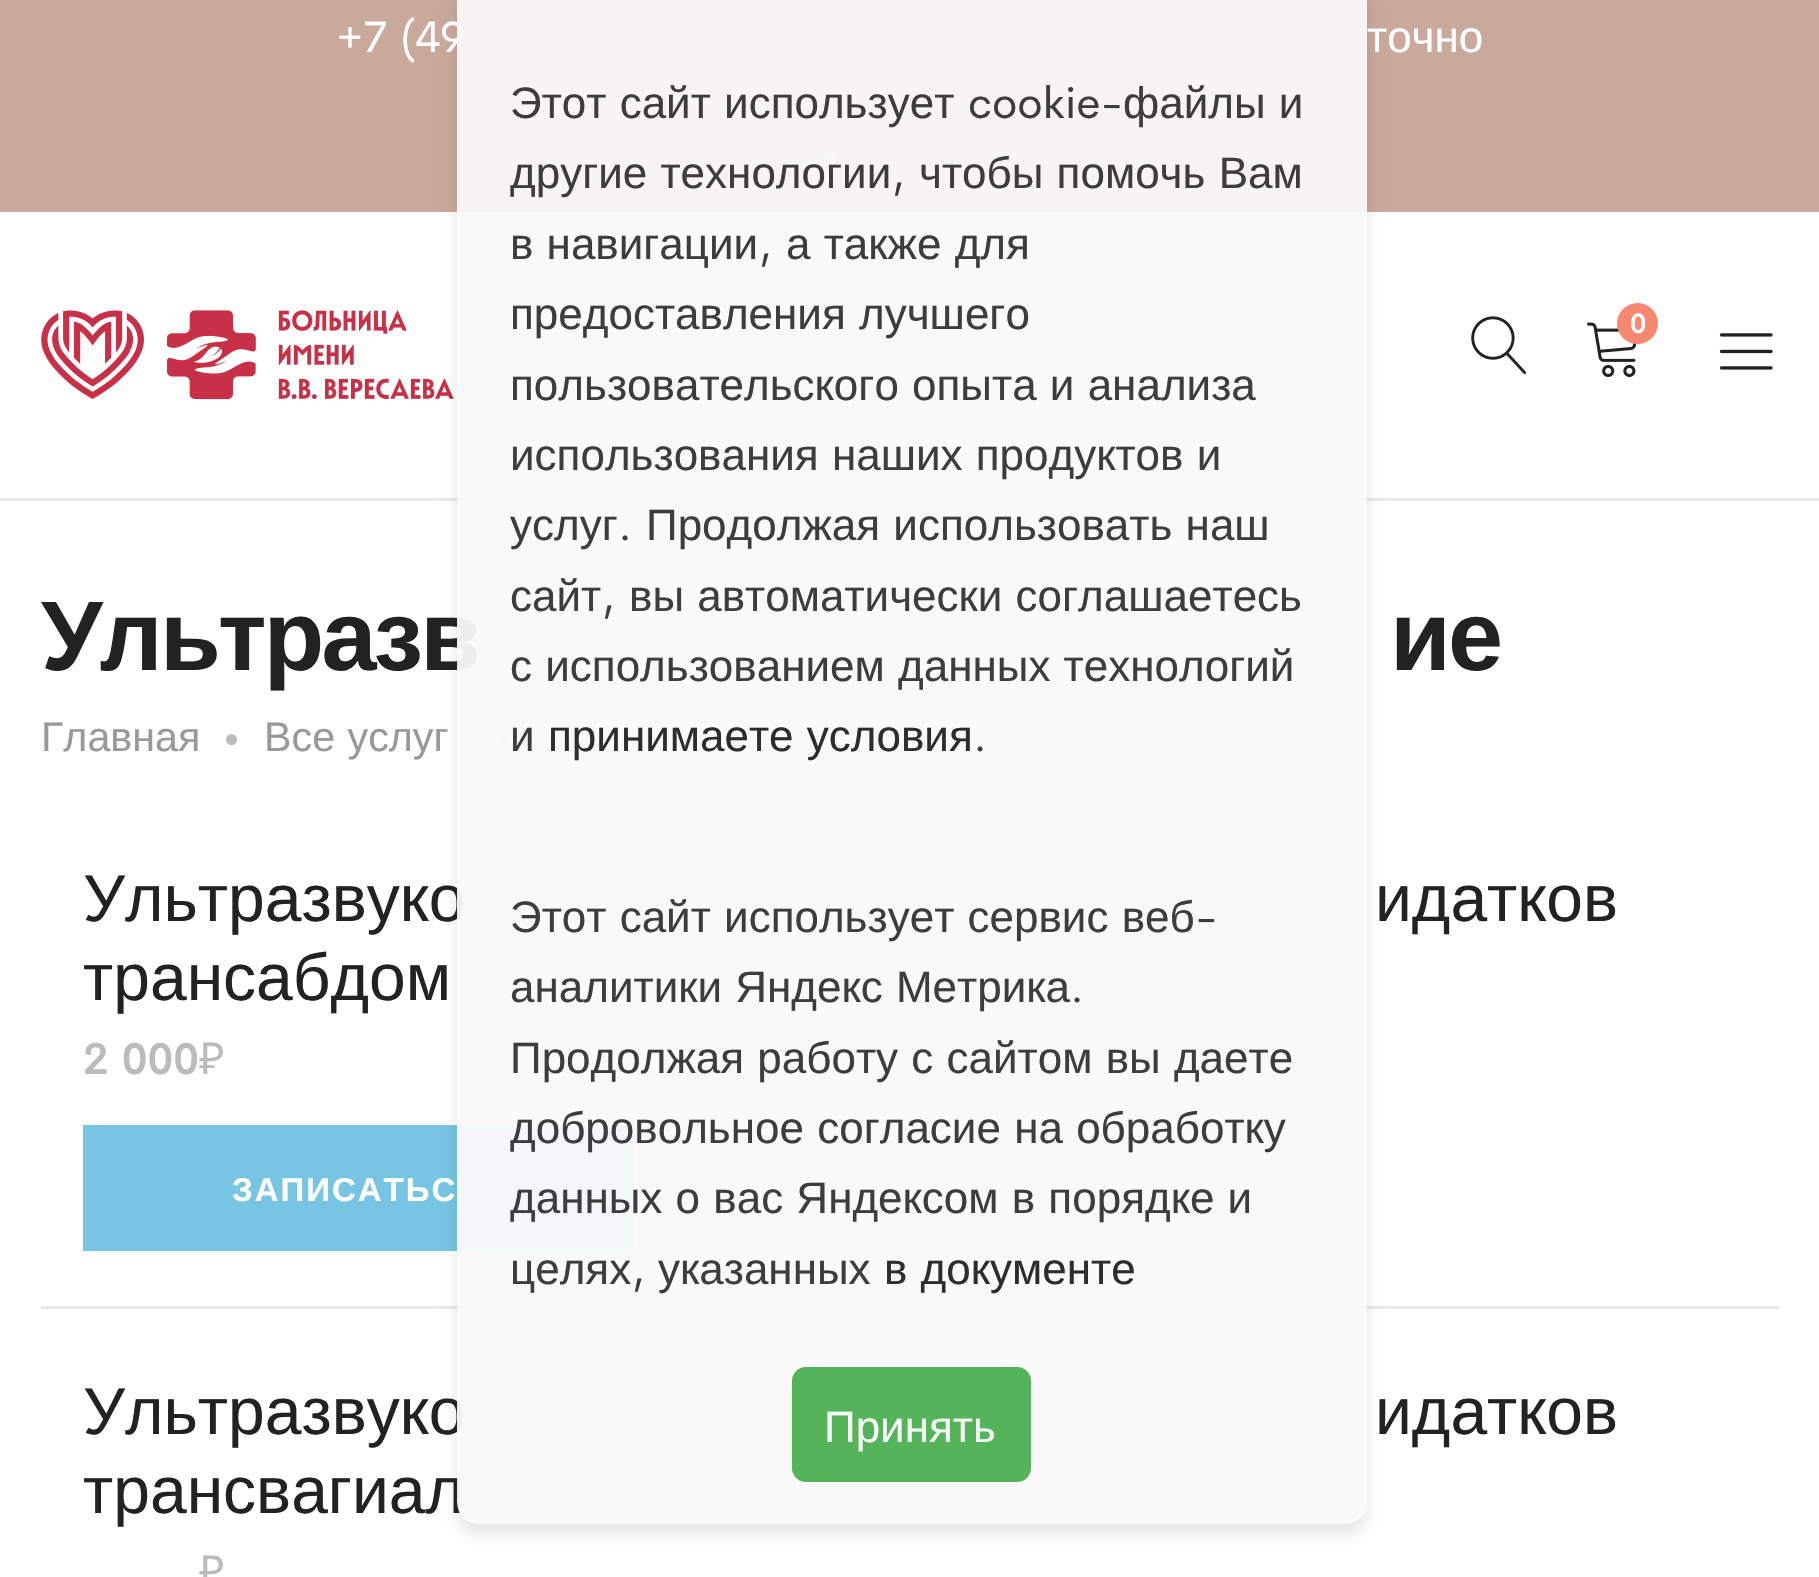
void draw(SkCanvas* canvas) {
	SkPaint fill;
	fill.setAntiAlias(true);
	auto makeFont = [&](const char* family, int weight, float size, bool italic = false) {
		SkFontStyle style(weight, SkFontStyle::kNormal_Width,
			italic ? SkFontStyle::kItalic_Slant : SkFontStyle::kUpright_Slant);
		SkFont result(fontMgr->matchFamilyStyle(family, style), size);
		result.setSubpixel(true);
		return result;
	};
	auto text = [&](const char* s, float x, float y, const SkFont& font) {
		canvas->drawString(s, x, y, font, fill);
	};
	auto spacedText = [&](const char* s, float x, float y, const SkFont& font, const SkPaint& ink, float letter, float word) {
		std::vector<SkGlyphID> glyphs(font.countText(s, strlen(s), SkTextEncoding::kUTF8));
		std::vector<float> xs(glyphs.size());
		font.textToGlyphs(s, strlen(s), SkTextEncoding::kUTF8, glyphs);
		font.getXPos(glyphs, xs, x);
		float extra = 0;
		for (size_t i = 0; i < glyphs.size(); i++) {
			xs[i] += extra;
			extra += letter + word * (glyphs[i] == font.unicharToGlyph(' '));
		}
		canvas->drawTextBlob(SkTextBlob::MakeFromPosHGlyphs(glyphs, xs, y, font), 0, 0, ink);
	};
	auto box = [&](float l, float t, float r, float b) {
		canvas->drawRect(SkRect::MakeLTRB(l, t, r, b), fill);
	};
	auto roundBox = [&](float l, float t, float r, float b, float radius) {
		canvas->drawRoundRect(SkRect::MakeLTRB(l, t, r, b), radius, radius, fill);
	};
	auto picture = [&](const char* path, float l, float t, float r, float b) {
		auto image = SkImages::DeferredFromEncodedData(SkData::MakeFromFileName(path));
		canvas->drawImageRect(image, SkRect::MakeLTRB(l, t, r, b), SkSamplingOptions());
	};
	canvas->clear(0xFFFFFFFF);
	fill.setColor(0xFFC9A99C);
	box(0, 0, 1819, 212);
	picture("image0.png", 792, 153, 836, 193);
	fill.setColor(0xFFEAEAEA);
	box(0, 498, 1819, 501);
	picture("image1.png", 41, 310, 454, 400);
	picture("image2.png", 1471, 316, 1527, 375);
	picture("image3.png", 1587, 322, 1637, 377);
	fill.setColor(0xFFF68872);
	canvas->drawCircle(1637.5f, 323.5f, 20.5f, fill);
	picture("image4.png", 1719, 333, 1773, 370);
	fill.setColor(0xFFBBBBBB);
	canvas->drawCircle(231.5f, 739.5f, 5.5f, fill);
	canvas->drawCircle(503.5f, 739.5f, 5.5f, fill);
	fill.setColor(0xFFEAEAEA);
	box(41, 1306, 1779, 1309);
	fill.setColor(0xFF78C5E3);
	box(83, 1125, 633, 1251);
	canvas->save();
	canvas->clipPath(SkPathBuilder(SkPathFillType::kEvenOdd).moveTo(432, 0).lineTo(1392, 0).lineTo(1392, 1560).lineTo(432, 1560).close().moveTo(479, -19).lineTo(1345, -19).cubicTo(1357, -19, 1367, -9, 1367, 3).lineTo(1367, 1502).cubicTo(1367, 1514, 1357, 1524, 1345, 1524).lineTo(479, 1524).cubicTo(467, 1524, 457, 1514, 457, 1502).lineTo(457, 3).cubicTo(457, -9, 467, -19, 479, -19).close().detach(), true);
	fill.setColor(0x1A000000);
	fill.setMaskFilter(SkMaskFilter::MakeBlur(kNormal_SkBlurStyle, 8));
	canvas->drawRoundRect(SkRect::MakeLTRB(457, -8, 1367, 1535), 22, 22, fill);
	fill.setMaskFilter(nullptr);
	canvas->restore();
	auto font1 = makeFont("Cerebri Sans", 400, 44);
	fill.setColor(0xFFFFFFFF);
	text("+7 (49", 337, 52, font1);
	auto font2 = makeFont("Liberation Sans", 400, 44);
	text("точно", 1367, 52, font2);
	auto font3 = makeFont("Cerebri Sans", 600, 28);
	text("0", 1630, 333, font3);
	auto font4 = makeFont("Liberation Sans", 700, 99);
	fill.setColor(0xFF222222);
	spacedText("Ультразв", 41, 670, font4, fill, -2.75f, 1);
	spacedText("ие", 1390, 670, font4, fill, -2.75f, 1);
	auto font5 = makeFont("Liberation Sans", 400, 41.25f);
	fill.setColor(0xFF999999);
	text("Главная", 41, 751, font5);
	spacedText("Все услуг", 264, 751, font5, fill, 0, 1);
	auto font6 = makeFont("Liberation Sans", 400, 66);
	fill.setColor(0xFF222222);
	spacedText("Ультразвуко", 83, 921, font6, fill, 0, 2);
	spacedText("идатков", 1375, 921, font6, fill, 0, 2);
	text("трансабдом", 83, 1000, font6);
	auto font7 = makeFont("Cerebri Sans", 600, 44);
	fill.setColor(0xFFBBBBBB);
	text("2 000", 83, 1074, font7);
	auto font8 = makeFont("Noto Sans", 400, 44);
	text("₽", 199, 1074, font8);
	auto font9 = makeFont("Liberation Sans", 700, 33);
	fill.setColor(0xFFFFFFFF);
	spacedText("ЗАПИСАТЬС", 232, 1201, font9, fill, 2, 0);
	fill.setColor(0xFF222222);
	spacedText("Ультразвуко", 83, 1434, font6, fill, 0, 2);
	spacedText("идатков", 1375, 1434, font6, fill, 0, 2);
	text("трансвагиал", 83, 1513, font6);
	fill.setColor(0xFFBBBBBB);
	text("₽", 199, 1587, font8);
	fill.setColor(0xF2F9F9F9);
	roundBox(457, -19, 1367, 1524, 22);
	fill.setColor(0xFF3D3D3D);
	spacedText("Этот сайт использует", 510, 118, font2, fill, 0, 1);
	text("cookie-", 968, 118, font1);
	spacedText("файлы и", 1123, 118, font2, fill, 0, 1);
	spacedText("другие технологии", 510, 188, font2, fill, 0, 1);
	text(",", 891, 188, font1);
	spacedText("чтобы помочь Вам", 919, 188, font2, fill, 0, 1);
	spacedText("в навигации", 510, 259, font2, fill, 0, 1);
	text(",", 758, 259, font1);
	spacedText("а также для", 786, 259, font2, fill, 0, 1);
	spacedText("предоставления лучшего", 510, 329, font2, fill, 0, 1);
	spacedText("пользовательского опыта и анализа", 510, 400, font2, fill, 0, 1);
	spacedText("использования наших продуктов и", 510, 470, font2, fill, 0, 1);
	text("услуг", 510, 540, font2);
	text(".", 618, 540, font1);
	spacedText("Продолжая использовать наш", 646, 540, font2, fill, 0, 1);
	text("сайт", 510, 611, font2);
	text(",", 601, 611, font1);
	spacedText("вы автоматически соглашаетесь", 629, 611, font2, fill, 0, 1);
	spacedText("с использованием данных технологий", 510, 681, font2, fill, 0, 1);
	text("и", 510, 751, font2);
	fill.setColor(0xFF2D2D2D);
	spacedText("принимаете условия", 548, 751, font2, fill, 0, 1);
	fill.setColor(0xFF3D3D3D);
	text(".", 973, 751, font1);
	spacedText("Этот сайт использует сервис веб", 510, 932, font2, fill, 0, 1);
	text("-", 1195, 932, font1);
	spacedText("аналитики Яндекс Метрика", 510, 1002, font2, fill, 0, 1);
	text(".", 1070, 1002, font1);
	spacedText("Продолжая работу с сайтом вы даете", 510, 1073, font2, fill, 0, 1);
	spacedText("добровольное согласие на обработку", 510, 1143, font2, fill, 0, 1);
	spacedText("данных о вас Яндексом в порядке и", 510, 1213, font2, fill, 0, 1);
	text("целях", 510, 1284, font2);
	text(",", 631, 1284, font1);
	text("указанных", 658, 1284, font2);
	fill.setColor(0xFF2D2D2D);
	spacedText("в документе", 884, 1284, font2, fill, 0, 1);
	fill.setColor(0xF24CAF50);
	roundBox(792, 1367, 1031, 1482, 14);
	fill.setColor(0xFFF6FBF7);
	text("Принять", 824, 1442, font2);
}
